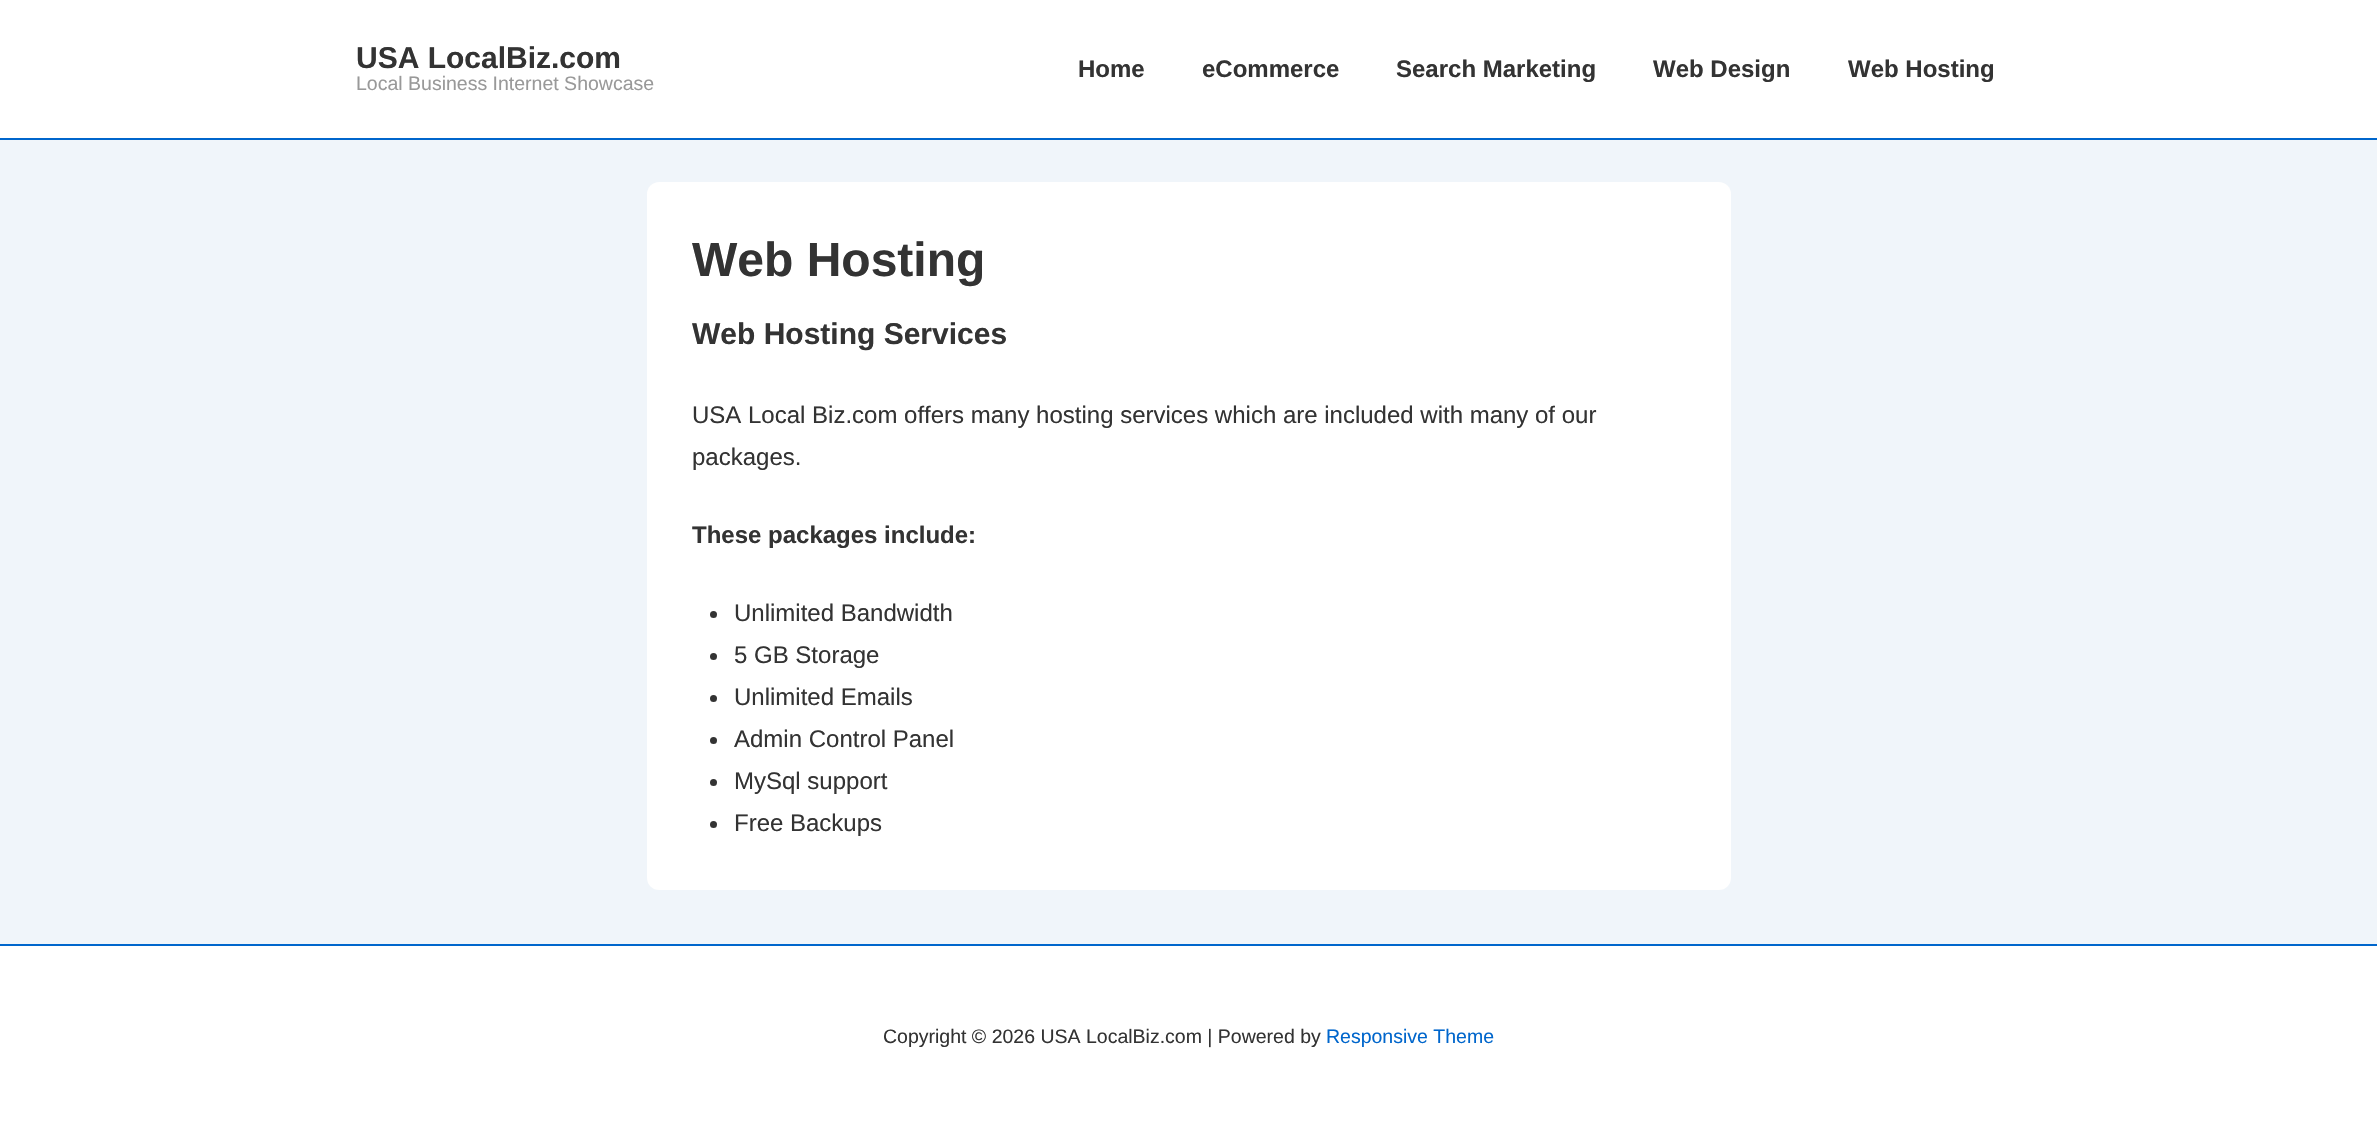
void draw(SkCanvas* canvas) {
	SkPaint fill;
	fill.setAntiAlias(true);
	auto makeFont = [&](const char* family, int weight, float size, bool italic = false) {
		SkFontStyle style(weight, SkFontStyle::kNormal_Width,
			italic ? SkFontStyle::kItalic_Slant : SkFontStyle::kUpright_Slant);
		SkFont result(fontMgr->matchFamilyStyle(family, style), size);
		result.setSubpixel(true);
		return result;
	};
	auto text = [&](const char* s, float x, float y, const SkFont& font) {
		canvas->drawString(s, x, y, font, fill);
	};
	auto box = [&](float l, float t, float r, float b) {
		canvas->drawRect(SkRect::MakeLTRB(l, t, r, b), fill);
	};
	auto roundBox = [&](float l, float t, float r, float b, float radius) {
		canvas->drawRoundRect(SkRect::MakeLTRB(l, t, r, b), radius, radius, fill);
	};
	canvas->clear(0xFFF0F5FA);
	fill.setColor(0xFFFFFFFF);
	box(0, 0, 2377, 138);
	fill.setColor(0xFF0066CC);
	box(0, 138, 2377, 140);
	fill.setColor(0xFFFFFFFF);
	roundBox(647, 182, 1731, 890, 12);
	fill.setColor(0xFF333333);
	canvas->drawCircle(713.5f, 614.5f, 3.5f, fill);
	canvas->drawCircle(713.5f, 656.5f, 3.5f, fill);
	canvas->drawCircle(713.5f, 698.5f, 3.5f, fill);
	canvas->drawCircle(713.5f, 740.5f, 3.5f, fill);
	canvas->drawCircle(713.5f, 782.5f, 3.5f, fill);
	canvas->drawCircle(713.5f, 824.5f, 3.5f, fill);
	fill.setColor(0xFFFFFFFF);
	box(0, 946, 2377, 1129);
	fill.setColor(0xFF0066CC);
	box(0, 944, 2377, 946);
	auto font1 = makeFont("Liberation Sans", 700, 30);
	fill.setColor(0xFF333333);
	text("USA LocalBiz.com", 356, 68, font1);
	auto font2 = makeFont("Liberation Sans", 400, 19.5f);
	fill.setColor(0xFF999999);
	text("Local Business Internet Showcase", 356, 90, font2);
	auto font3 = makeFont("Liberation Sans", 700, 24);
	fill.setColor(0xFF333333);
	text("Home", 1078, 77, font3);
	text("eCommerce", 1202, 77, font3);
	text("Search Marketing", 1396, 77, font3);
	text("Web Design", 1653, 77, font3);
	text("Web Hosting", 1848, 77, font3);
	auto font4 = makeFont("Liberation Sans", 700, 48);
	text("Web Hosting", 692, 276, font4);
	text("Web Hosting Services", 692, 344, font1);
	auto font5 = makeFont("Liberation Sans", 400, 24);
	text("USA Local Biz.com offers many hosting services which are included with many of our", 692, 423, font5);
	text("packages.", 692, 465, font5);
	text("These packages include:", 692, 543, font3);
	text("Unlimited Bandwidth", 734, 621, font5);
	text("5 GB Storage", 734, 663, font5);
	text("Unlimited Emails", 734, 705, font5);
	text("Admin Control Panel", 734, 747, font5);
	text("MySql support", 734, 789, font5);
	text("Free Backups", 734, 831, font5);
	text("Copyright © 2026 USA LocalBiz.com | Powered by", 883, 1043, font2);
	fill.setColor(0xFF0066CC);
	text("Responsive Theme", 1326, 1043, font2);
}
